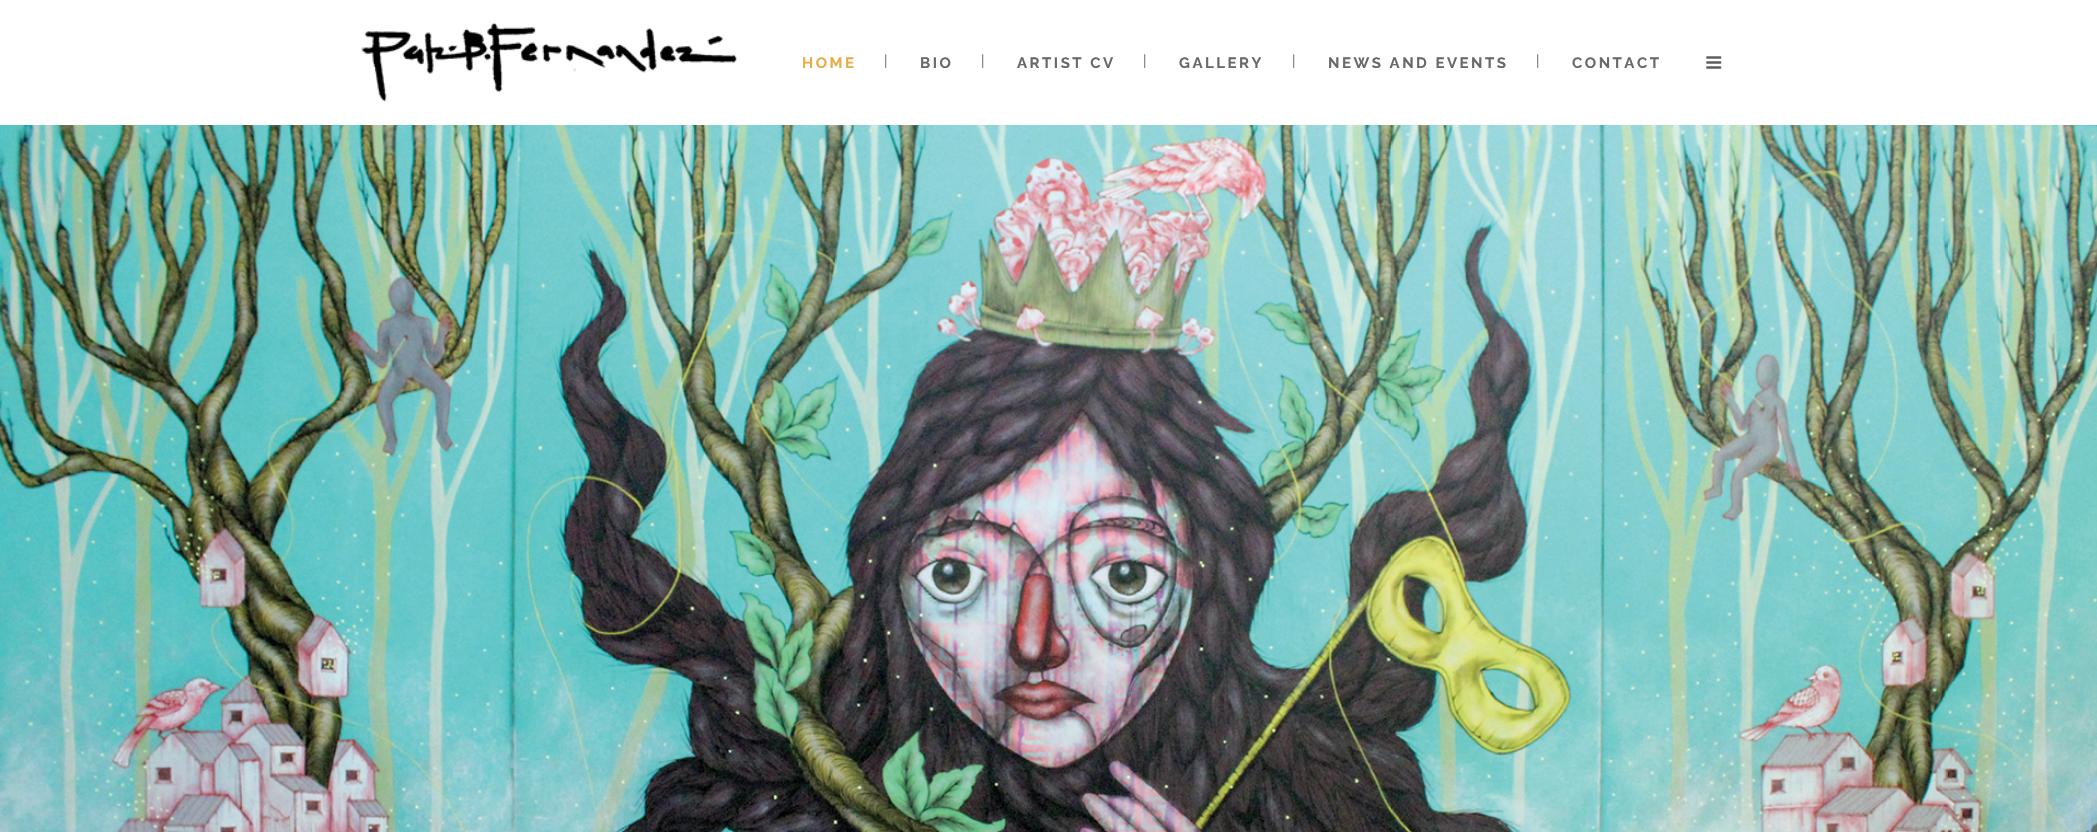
void draw(SkCanvas* canvas) {
	SkPaint fill;
	fill.setAntiAlias(true);
	auto makeFont = [&](const char* family, int weight, float size, bool italic = false) {
		SkFontStyle style(weight, SkFontStyle::kNormal_Width,
			italic ? SkFontStyle::kItalic_Slant : SkFontStyle::kUpright_Slant);
		SkFont result(fontMgr->matchFamilyStyle(family, style), size);
		result.setSubpixel(true);
		return result;
	};
	auto text = [&](const char* s, float x, float y, const SkFont& font) {
		canvas->drawString(s, x, y, font, fill);
	};
	auto spacedText = [&](const char* s, float x, float y, const SkFont& font, const SkPaint& ink, float letter, float word) {
		std::vector<SkGlyphID> glyphs(font.countText(s, strlen(s), SkTextEncoding::kUTF8));
		std::vector<float> xs(glyphs.size());
		font.textToGlyphs(s, strlen(s), SkTextEncoding::kUTF8, glyphs);
		font.getXPos(glyphs, xs, x);
		float extra = 0;
		for (size_t i = 0; i < glyphs.size(); i++) {
			xs[i] += extra;
			extra += letter + word * (glyphs[i] == font.unicharToGlyph(' '));
		}
		canvas->drawTextBlob(SkTextBlob::MakeFromPosHGlyphs(glyphs, xs, y, font), 0, 0, ink);
	};
	auto picture = [&](const char* path, float l, float t, float r, float b) {
		auto image = SkImages::DeferredFromEncodedData(SkData::MakeFromFileName(path));
		canvas->drawImageRect(image, SkRect::MakeLTRB(l, t, r, b), SkSamplingOptions());
	};
	canvas->clear(0xFFFFFFFF);
	picture("image0.png", 361, 23, 737, 102);
	picture("image1.png", 1706, 56, 1722, 69);
	picture("image2.png", 0, 125, 2097, 832);
	auto font1 = makeFont("Raleway", 700, 15);
	fill.setColor(0xFFE6AE48);
	spacedText("HOME", 802, 68, font1, fill, 2.5f, 0);
	auto font2 = makeFont("Raleway", 400, 15);
	fill.setColor(0xFF696969);
	text("|", 884, 66, font2);
	spacedText("BIO", 920, 68, font1, fill, 2.5f, 0);
	text("|", 981, 66, font2);
	spacedText("ARTIST CV", 1017, 68, font1, fill, 2.5f, 0);
	text("|", 1143, 66, font2);
	spacedText("GALLERY", 1179, 68, font1, fill, 2.5f, 0);
	text("|", 1292, 66, font2);
	spacedText("NEWS AND EVENTS", 1328, 68, font1, fill, 2.5f, 0);
	text("|", 1536, 66, font2);
	spacedText("CONTACT", 1572, 68, font1, fill, 2.5f, 0);
}
